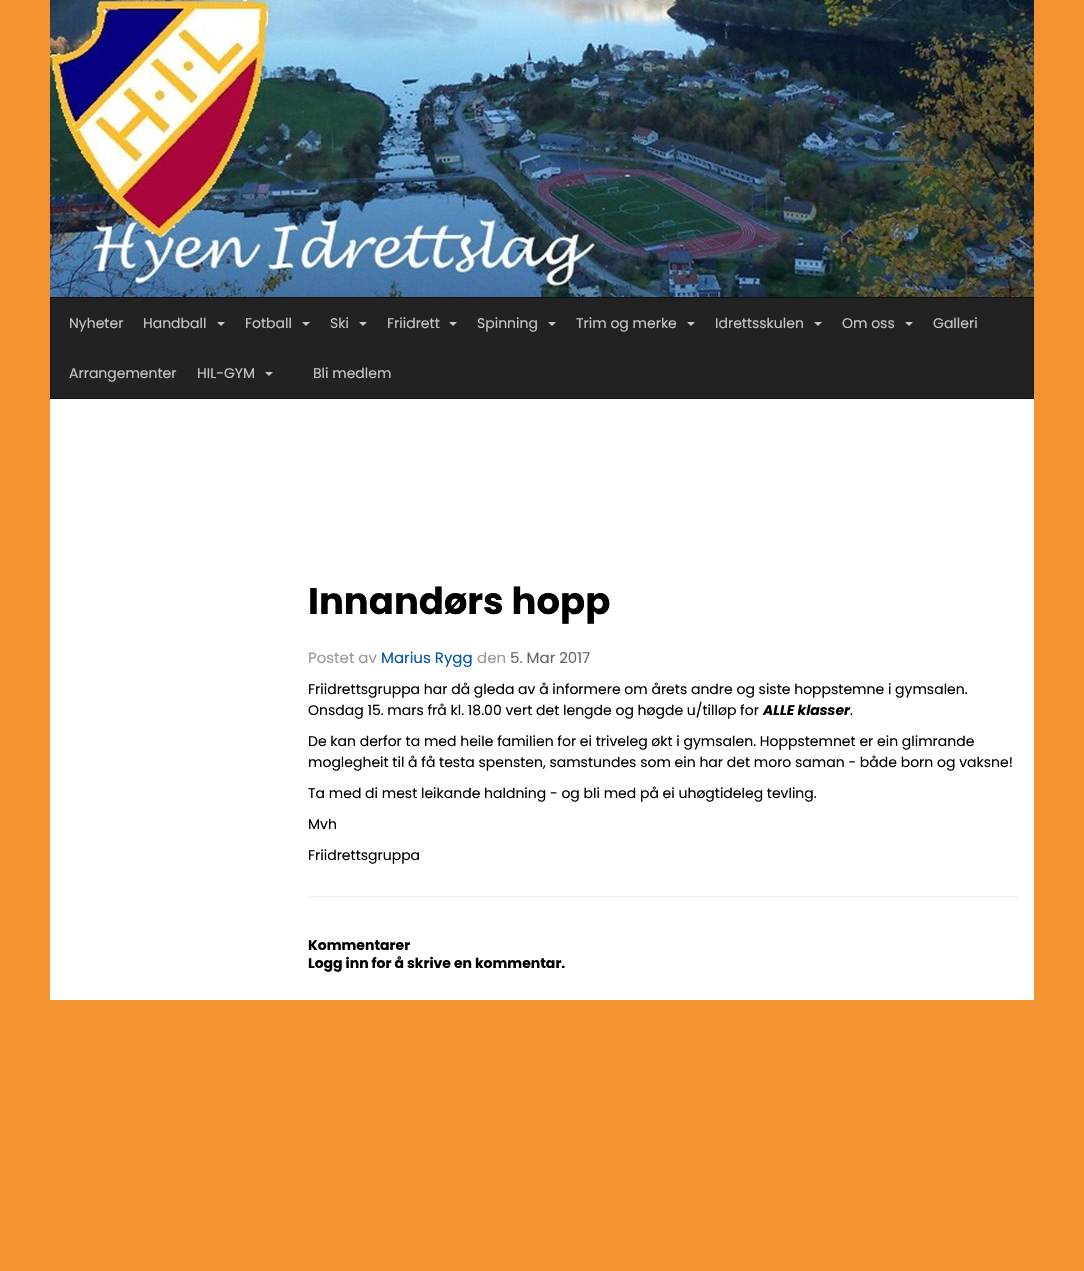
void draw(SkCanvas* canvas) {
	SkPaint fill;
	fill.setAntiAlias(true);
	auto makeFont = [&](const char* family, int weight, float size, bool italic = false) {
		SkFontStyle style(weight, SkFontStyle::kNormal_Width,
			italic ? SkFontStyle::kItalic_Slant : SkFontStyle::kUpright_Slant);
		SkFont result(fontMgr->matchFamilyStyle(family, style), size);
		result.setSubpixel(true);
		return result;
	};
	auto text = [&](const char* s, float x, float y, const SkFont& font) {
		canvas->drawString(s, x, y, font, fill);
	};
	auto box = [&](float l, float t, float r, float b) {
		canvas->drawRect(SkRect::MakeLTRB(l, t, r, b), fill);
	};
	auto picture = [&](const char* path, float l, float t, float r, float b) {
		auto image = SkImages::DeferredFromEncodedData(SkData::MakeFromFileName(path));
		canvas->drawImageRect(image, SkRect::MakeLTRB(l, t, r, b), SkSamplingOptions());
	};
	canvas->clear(0xFFF59331);
	picture("image0.png", 50, 0, 1034, 297);
	fill.setColor(0xFF222222);
	canvas->drawRect(SkRect::MakeLTRB(50.5f, 297.5f, 1033.5f, 398.5f), fill);
	fill.setStyle(SkPaint::kStroke_Style);
	fill.setStrokeWidth(1);
	fill.setColor(0xFF101010);
	canvas->drawRect(SkRect::MakeLTRB(50.5f, 297.5f, 1033.5f, 398.5f), fill);
	fill.setStyle(SkPaint::kFill_Style);
	fill.setColor(0xFFC7C7C7);
	canvas->drawPath(SkPathBuilder().moveTo(217, 322).lineTo(225, 322).lineTo(221, 326).close().detach(), fill);
	canvas->drawPath(SkPathBuilder().moveTo(302, 322).lineTo(310, 322).lineTo(306, 326).close().detach(), fill);
	canvas->drawPath(SkPathBuilder().moveTo(359, 322).lineTo(367, 322).lineTo(363, 326).close().detach(), fill);
	canvas->drawPath(SkPathBuilder().moveTo(449, 322).lineTo(457, 322).lineTo(453, 326).close().detach(), fill);
	canvas->drawPath(SkPathBuilder().moveTo(548, 322).lineTo(556, 322).lineTo(552, 326).close().detach(), fill);
	canvas->drawPath(SkPathBuilder().moveTo(687, 322).lineTo(695, 322).lineTo(691, 326).close().detach(), fill);
	canvas->drawPath(SkPathBuilder().moveTo(814, 322).lineTo(822, 322).lineTo(818, 326).close().detach(), fill);
	canvas->drawPath(SkPathBuilder().moveTo(905, 322).lineTo(913, 322).lineTo(909, 326).close().detach(), fill);
	canvas->drawPath(SkPathBuilder().moveTo(265, 372).lineTo(273, 372).lineTo(269, 376).close().detach(), fill);
	fill.setColor(0xFFFFFFFF);
	box(50, 399, 1034, 1000);
	fill.setColor(0xFFEEEEEE);
	box(308, 896, 1018, 897);
	auto font1 = makeFont("Poppins", 400, 14);
	fill.setColor(0xFFC7C7C7);
	text("Nyheter", 69, 328, font1);
	text("Handball", 143, 328, font1);
	text("Fotball", 245, 328, font1);
	text("Ski", 330, 328, font1);
	text("Friidrett", 387, 328, font1);
	text("Spinning", 477, 328, font1);
	text("Trim og merke", 576, 328, font1);
	text("Idrettsskulen", 715, 328, font1);
	text("Om oss", 842, 328, font1);
	text("Galleri", 933, 328, font1);
	text("Arrangementer", 69, 378, font1);
	text("HIL-GYM", 197, 378, font1);
	text("Bli medlem", 313, 378, font1);
	auto font2 = makeFont("Poppins", 700, 37);
	fill.setColor(0xFF000000);
	text("Innandørs hopp", 308, 614, font2);
	auto font3 = makeFont("Poppins", 400, 15);
	fill.setColor(0xFF999999);
	text("Postet av", 308, 663, font3);
	fill.setColor(0xFF0054A6);
	text("Marius Rygg", 381, 663, font3);
	fill.setColor(0xFF999999);
	text("den", 477, 663, font3);
	fill.setColor(0xFF666666);
	text("5. Mar 2017", 510, 663, font3);
	fill.setColor(0xFF000000);
	text("Friidrettsgruppa har då gleda av å informere om årets andre og siste hoppstemne i gymsalen.", 308, 694, font1);
	text("Onsdag 15. mars frå kl. 18.00 vert det lengde og høgde u/tilløp for", 308, 715, font1);
	auto font4 = makeFont("Poppins", 700, 14, true);
	text("ALLE klasser", 763, 715, font4);
	text(".", 850, 715, font1);
	text("De kan derfor ta med heile familien for ei triveleg økt i gymsalen. Hoppstemnet er ein glimrande", 308, 746, font1);
	text("moglegheit til å få testa spensten, samstundes som ein har det moro saman - både born og vaksne!", 308, 767, font1);
	text("Ta med di mest leikande haldning - og bli med på ei uhøgtideleg tevling.", 308, 798, font1);
	text("Mvh", 308, 829, font1);
	text("Friidrettsgruppa", 308, 860, font1);
	auto font5 = makeFont("Poppins", 700, 14);
	text("Kommentarer", 308, 950, font5);
	text("Logg inn for å skrive en kommentar.", 308, 968, font5);
}
